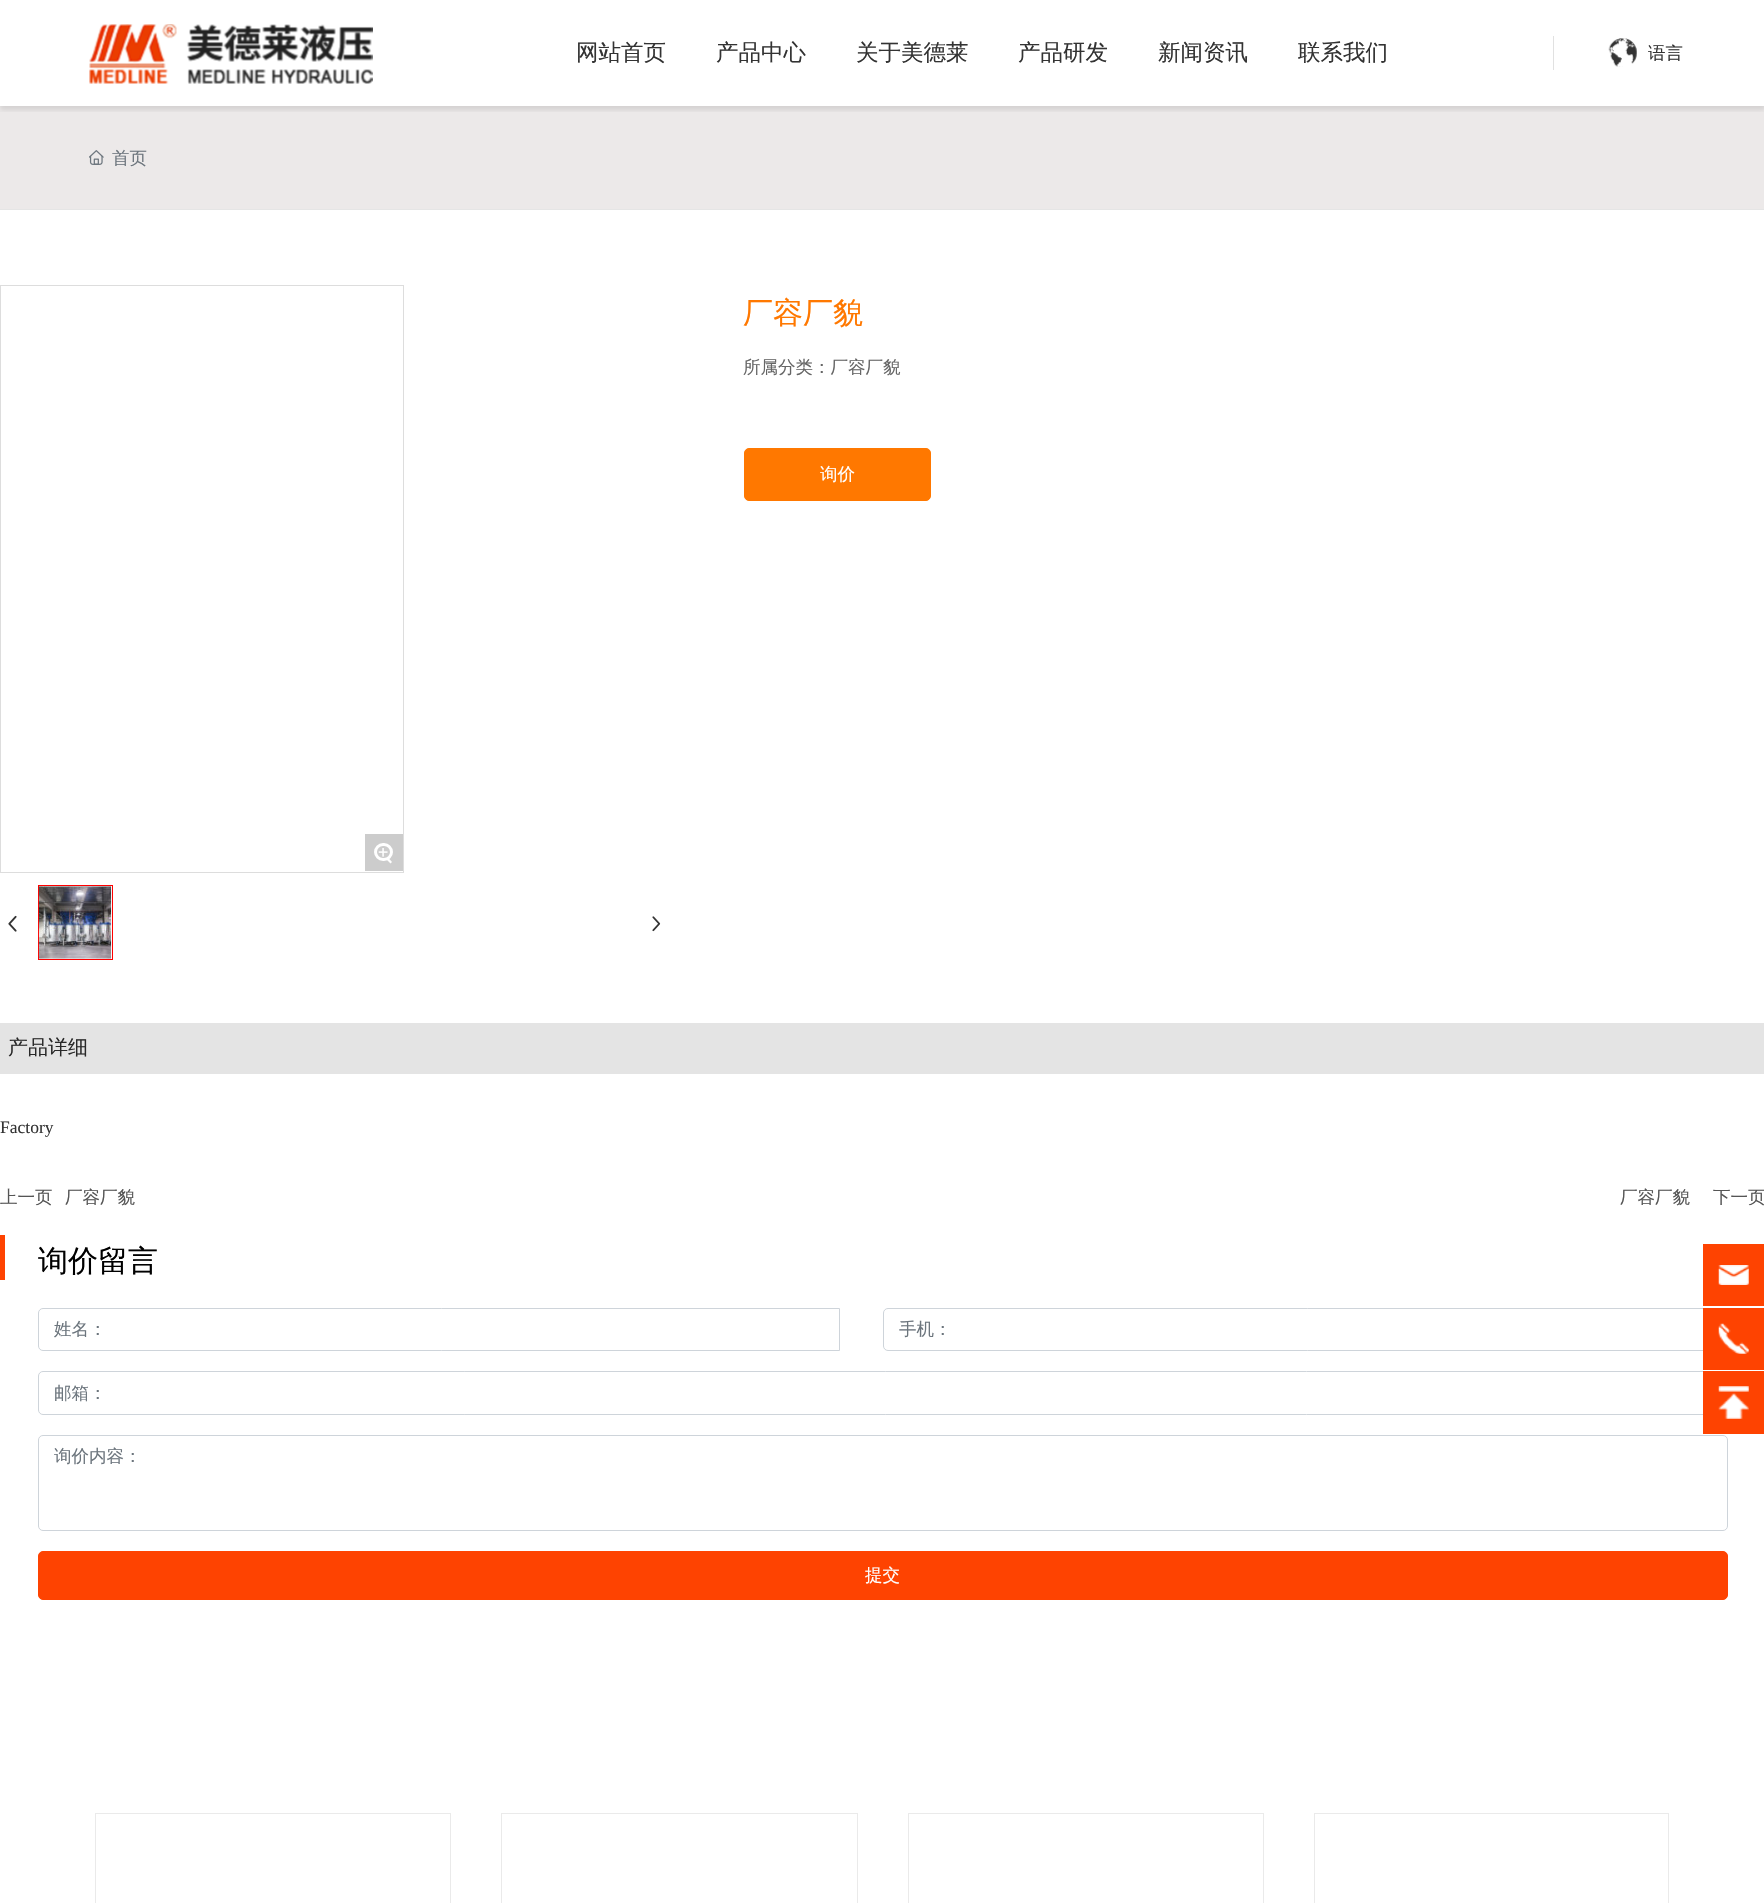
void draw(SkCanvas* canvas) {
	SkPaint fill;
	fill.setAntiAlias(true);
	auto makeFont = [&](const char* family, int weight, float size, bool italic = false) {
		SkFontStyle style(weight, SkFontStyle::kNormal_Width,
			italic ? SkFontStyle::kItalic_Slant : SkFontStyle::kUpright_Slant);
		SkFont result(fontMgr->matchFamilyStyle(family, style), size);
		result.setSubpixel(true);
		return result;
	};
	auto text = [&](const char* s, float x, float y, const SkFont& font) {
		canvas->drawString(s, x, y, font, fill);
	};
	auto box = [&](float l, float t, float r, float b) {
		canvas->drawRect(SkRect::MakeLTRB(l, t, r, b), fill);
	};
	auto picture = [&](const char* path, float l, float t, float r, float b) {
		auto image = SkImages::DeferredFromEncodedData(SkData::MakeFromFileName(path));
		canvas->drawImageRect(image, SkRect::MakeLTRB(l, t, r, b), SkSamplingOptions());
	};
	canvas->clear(0xFFFFFFFF);
	fill.setColor(0xFFECE9E9);
	box(0, 106, 1764, 209);
	canvas->save();
	canvas->clipRect(SkRect::MakeLTRB(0, 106, 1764, 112));
	fill.setColor(0x1A000000);
	fill.setMaskFilter(SkMaskFilter::MakeBlur(kNormal_SkBlurStyle, 2.5f));
	canvas->drawRect(SkRect::MakeLTRB(0, 4, 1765, 110), fill);
	fill.setMaskFilter(nullptr);
	canvas->restore();
	picture("image0.png", 89, 24, 373, 84);
	fill.setColor(0xFFE1E1E1);
	box(1553, 36, 1554, 70);
	picture("image1.png", 1608, 38, 1637, 67);
	fill.setColor(0xFFE5E5E5);
	box(0, 209, 1764, 210);
	picture("image2.png", 89, 150, 104, 165);
	fill.setColor(0xFFFF7800);
	canvas->drawRoundRect(SkRect::MakeLTRB(744.5f, 448.5f, 930.5f, 500.5f), 4.5f, 4.5f, fill);
	fill.setStyle(SkPaint::kStroke_Style);
	fill.setStrokeWidth(1);
	canvas->drawRoundRect(SkRect::MakeLTRB(744.5f, 448.5f, 930.5f, 500.5f), 4.5f, 4.5f, fill);
	fill.setColor(0xFFDDDDDD);
	canvas->drawRect(SkRect::MakeLTRB(0.5f, 285.5f, 403.5f, 872.5f), fill);
	fill.setStyle(SkPaint::kFill_Style);
	fill.setColor(0xFFCCCCCC);
	box(365, 834, 403, 871);
	fill.setStyle(SkPaint::kStroke_Style);
	fill.setStrokeWidth(3);
	fill.setColor(0xFFFFFFFF);
	canvas->drawRoundRect(SkRect::MakeLTRB(375.5f, 844.5f, 391.5f, 859.5f), 7.5f, 7.5f, fill);
	fill.setStyle(SkPaint::kFill_Style);
	canvas->drawPath(SkPathBuilder().moveTo(388, 857.5f).lineTo(392, 862).lineTo(390.5f, 863.5f).lineTo(386, 859).close().detach(), fill);
	fill.setStyle(SkPaint::kStroke_Style);
	fill.setStrokeWidth(1);
	fill.setColor(0xFFFF0000);
	canvas->drawRect(SkRect::MakeLTRB(38.5f, 885.5f, 112.5f, 959.5f), fill);
	picture("image3.png", 38, 886, 112, 959);
	picture("image4.png", 8, 915, 17, 932);
	picture("image5.png", 652, 916, 661, 932);
	fill.setStyle(SkPaint::kFill_Style);
	fill.setColor(0xFFE4E4E4);
	box(0, 1023, 1764, 1074);
	fill.setColor(0xFFFE4301);
	box(0, 1235, 5, 1280);
	fill.setStyle(SkPaint::kStroke_Style);
	fill.setColor(0xFFCED4DA);
	canvas->drawPath(SkPathBuilder().moveTo(43, 1308.5f).lineTo(839.5f, 1308.5f).lineTo(839.5f, 1350.5f).lineTo(43, 1350.5f).cubicTo(40.5f, 1350.5f, 38.5f, 1348.5f, 38.5f, 1346).lineTo(38.5f, 1313).cubicTo(38.5f, 1310.5f, 40.5f, 1308.5f, 43, 1308.5f).close().detach(), fill);
	canvas->drawPath(SkPathBuilder().moveTo(888, 1308.5f).lineTo(1727.5f, 1308.5f).lineTo(1727.5f, 1350.5f).lineTo(888, 1350.5f).cubicTo(885.5f, 1350.5f, 883.5f, 1348.5f, 883.5f, 1346).lineTo(883.5f, 1313).cubicTo(883.5f, 1310.5f, 885.5f, 1308.5f, 888, 1308.5f).close().detach(), fill);
	canvas->drawPath(SkPathBuilder().moveTo(43, 1371.5f).lineTo(1727.5f, 1371.5f).lineTo(1727.5f, 1414.5f).lineTo(43, 1414.5f).cubicTo(40.5f, 1414.5f, 38.5f, 1412.5f, 38.5f, 1410).lineTo(38.5f, 1376).cubicTo(38.5f, 1373.5f, 40.5f, 1371.5f, 43, 1371.5f).close().detach(), fill);
	canvas->drawRoundRect(SkRect::MakeLTRB(38.5f, 1435.5f, 1727.5f, 1530.5f), 4.5f, 4.5f, fill);
	fill.setStyle(SkPaint::kFill_Style);
	fill.setColor(0xFFFE4301);
	canvas->drawRoundRect(SkRect::MakeLTRB(38.5f, 1551.5f, 1727.5f, 1599.5f), 4.5f, 4.5f, fill);
	fill.setStyle(SkPaint::kStroke_Style);
	canvas->drawRoundRect(SkRect::MakeLTRB(38.5f, 1551.5f, 1727.5f, 1599.5f), 4.5f, 4.5f, fill);
	fill.setStyle(SkPaint::kFill_Style);
	box(1703, 1244, 1764, 1306);
	picture("image6.png", 1718, 1265, 1749, 1285);
	box(1703, 1308, 1764, 1370);
	picture("image7.png", 1718, 1323, 1749, 1354);
	box(1703, 1371, 1764, 1434);
	picture("image8.png", 1718, 1386, 1749, 1419);
	fill.setStyle(SkPaint::kStroke_Style);
	fill.setColor(0xFFEAEAEA);
	canvas->drawRect(SkRect::MakeLTRB(95.5f, 1813.5f, 450.5f, 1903.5f), fill);
	canvas->drawRect(SkRect::MakeLTRB(501.5f, 1813.5f, 857.5f, 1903.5f), fill);
	canvas->drawRect(SkRect::MakeLTRB(908.5f, 1813.5f, 1263.5f, 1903.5f), fill);
	canvas->drawRect(SkRect::MakeLTRB(1314.5f, 1813.5f, 1668.5f, 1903.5f), fill);
	auto font1 = makeFont("WenQuanYi Zen Hei", 500, 22.5f);
	fill.setStyle(SkPaint::kFill_Style);
	fill.setColor(0xFF333333);
	text("网站首页", 576, 60, font1);
	text("产品中心", 716, 60, font1);
	text("关于美德莱", 856, 60, font1);
	text("产品研发", 1018, 60, font1);
	text("新闻资讯", 1158, 60, font1);
	text("联系我们", 1298, 60, font1);
	auto font2 = makeFont("WenQuanYi Zen Hei", 500, 17.5f);
	text("语言", 1648, 59, font2);
	fill.setColor(0xFF6C757D);
	text("首页", 112, 164, font2);
	auto font3 = makeFont("WenQuanYi Zen Hei", 500, 30);
	fill.setColor(0xFFFF7800);
	text("厂容厂貌", 743, 323, font3);
	fill.setColor(0xFF666666);
	text("所属分类：厂容厂貌", 743, 373, font2);
	fill.setColor(0xFFFFFFFF);
	text("询价", 820, 480, font2);
	auto font4 = makeFont("Liberation Sans", 400, 17.5f);
	text("+", 378, 858, font4);
	auto font5 = makeFont("WenQuanYi Zen Hei", 500, 20);
	fill.setColor(0xFF292929);
	text("产品详细", 8, 1054, font5);
	auto font6 = makeFont("Liberation Serif", 400, 17.5f);
	fill.setColor(0xFF333333);
	text("Factory", 0, 1133, font6);
	fill.setColor(0xFF555555);
	text("上一页", 0, 1203, font2);
	text("厂容厂貌", 65, 1203, font2);
	text("厂容厂貌", 1620, 1203, font2);
	text("下一页", 1713, 1203, font2);
	fill.setColor(0xFF000000);
	text("询价留言", 38, 1271, font3);
	fill.setColor(0xFF6C757D);
	text("姓名：", 54, 1335, font2);
	text("手机：", 899, 1335, font2);
	text("邮箱：", 54, 1399, font2);
	text("询价内容：", 54, 1462, font2);
	fill.setColor(0xFFFFFFFF);
	text("提交", 865, 1581, font2);
}
